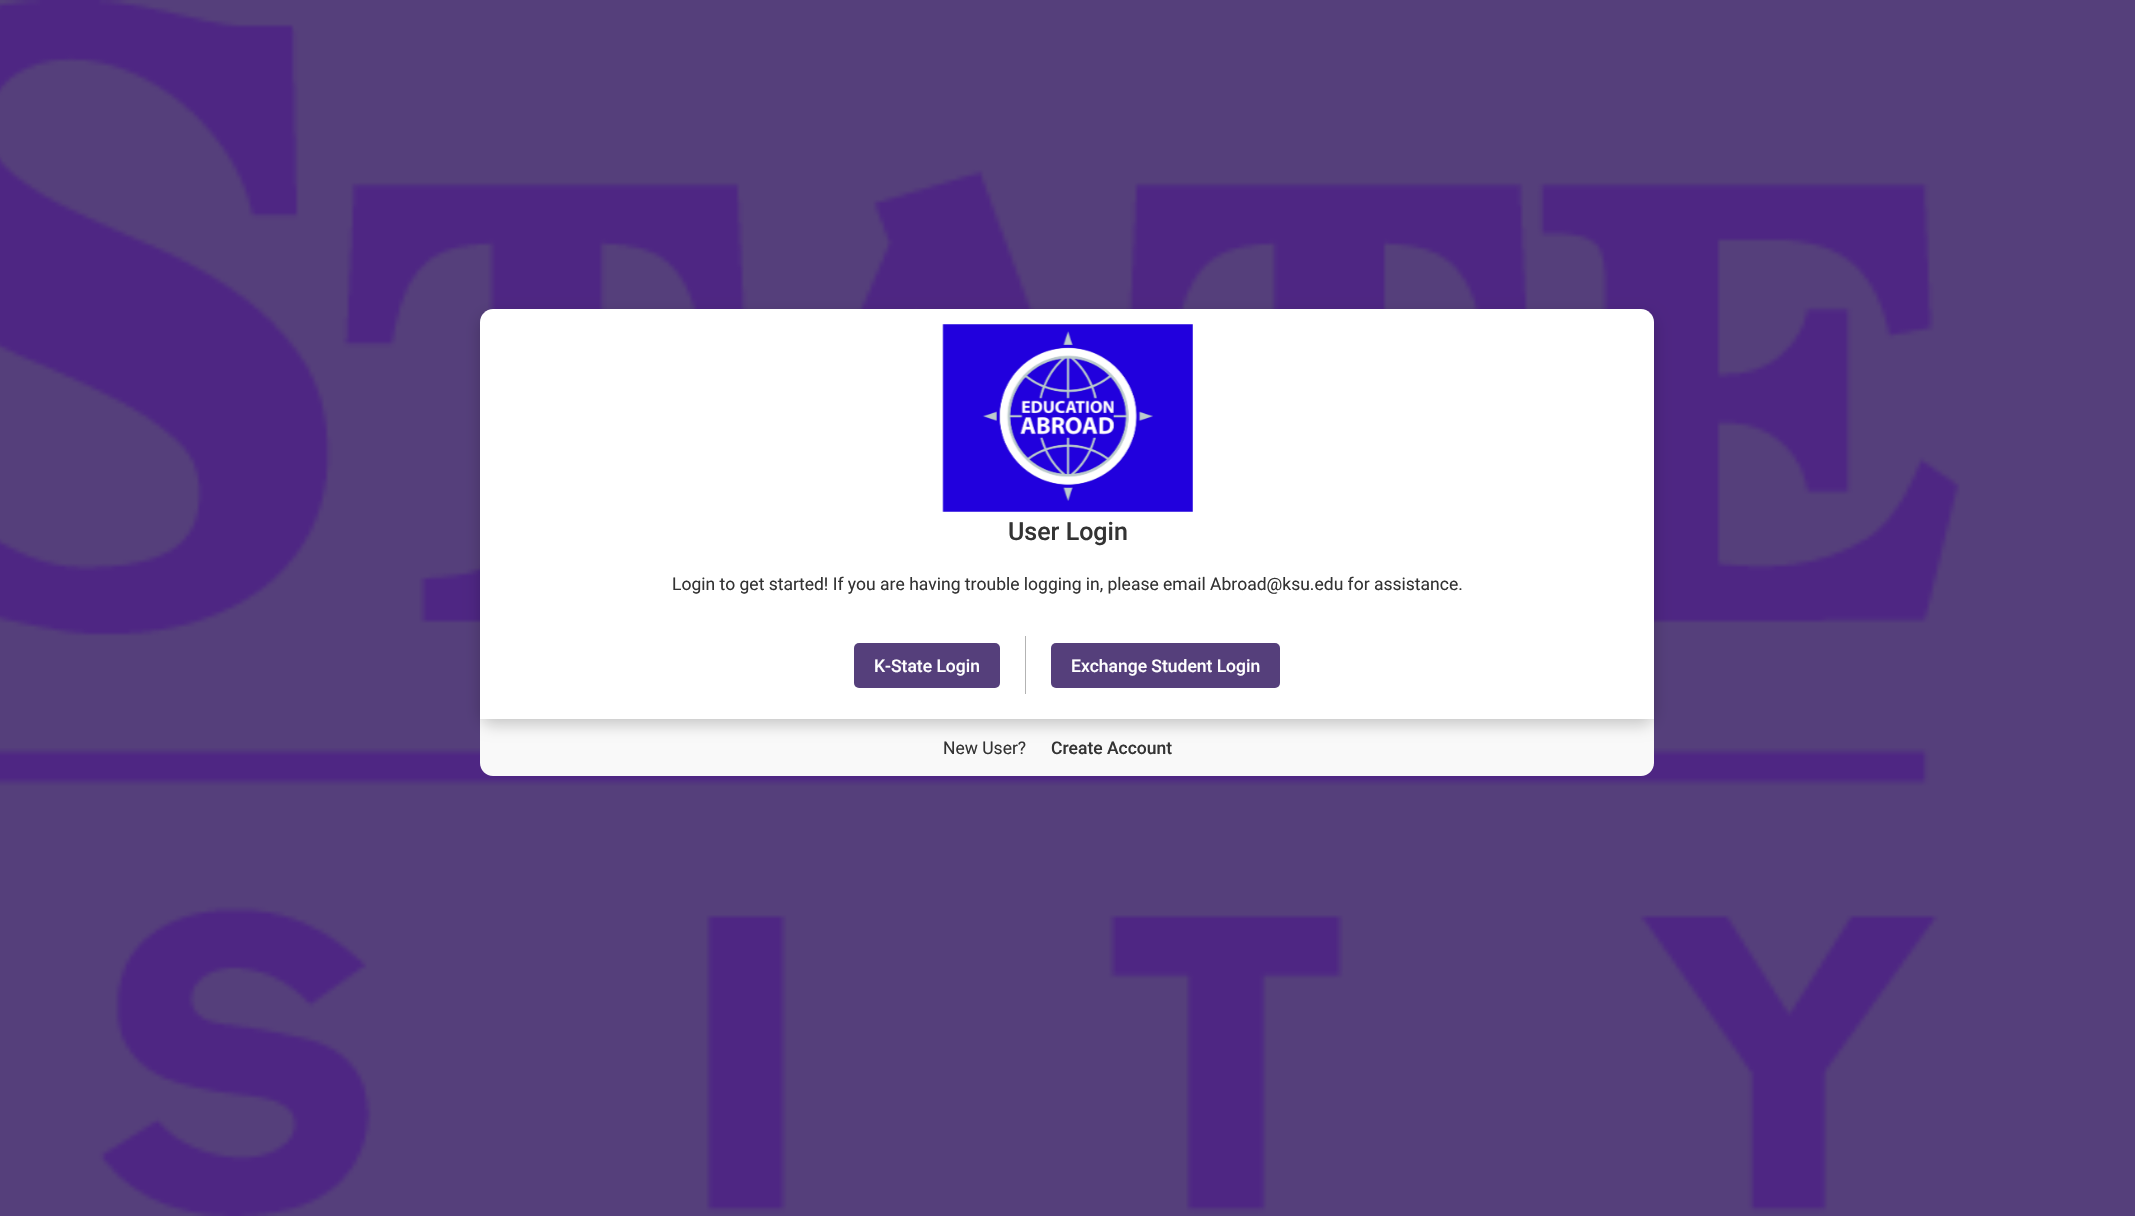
void draw(SkCanvas* canvas) {
	SkPaint fill;
	fill.setAntiAlias(true);
	auto makeFont = [&](const char* family, int weight, float size, bool italic = false) {
		SkFontStyle style(weight, SkFontStyle::kNormal_Width,
			italic ? SkFontStyle::kItalic_Slant : SkFontStyle::kUpright_Slant);
		SkFont result(fontMgr->matchFamilyStyle(family, style), size);
		result.setSubpixel(true);
		return result;
	};
	auto text = [&](const char* s, float x, float y, const SkFont& font) {
		canvas->drawString(s, x, y, font, fill);
	};
	auto box = [&](float l, float t, float r, float b) {
		canvas->drawRect(SkRect::MakeLTRB(l, t, r, b), fill);
	};
	auto roundBox = [&](float l, float t, float r, float b, float radius) {
		canvas->drawRoundRect(SkRect::MakeLTRB(l, t, r, b), radius, radius, fill);
	};
	auto picture = [&](const char* path, float l, float t, float r, float b) {
		auto image = SkImages::DeferredFromEncodedData(SkData::MakeFromFileName(path));
		canvas->drawImageRect(image, SkRect::MakeLTRB(l, t, r, b), SkSamplingOptions());
	};
	canvas->clear(0xFF553F7B);
	picture("image0.png", 0, 0, 1960, 1216);
	fill.setColor(0xFFF9F9F9);
	canvas->drawPath(SkPathBuilder().moveTo(480, 719).lineTo(1654, 719).lineTo(1654, 763).cubicTo(1654, 770, 1648, 776, 1641, 776).lineTo(493, 776).cubicTo(486, 776, 480, 770, 480, 763).close().detach(), fill);
	fill.setColor(0x33000000);
	fill.setMaskFilter(SkMaskFilter::MakeBlur(kNormal_SkBlurStyle, 7.5f));
	canvas->drawRoundRect(SkRect::MakeLTRB(480, 315, 1654, 725), 13, 13, fill);
	fill.setMaskFilter(nullptr);
	fill.setColor(0xFFFFFFFF);
	canvas->drawPath(SkPathBuilder().moveTo(493, 309).lineTo(1641, 309).cubicTo(1648, 309, 1654, 315, 1654, 322).lineTo(1654, 719).lineTo(480, 719).lineTo(480, 322).cubicTo(480, 315, 486, 309, 493, 309).close().detach(), fill);
	picture("image1.png", 942, 324, 1193, 512);
	fill.setColor(0xFF553F7B);
	roundBox(854, 643, 1000, 688, 5);
	fill.setColor(0xFFB3B3B3);
	box(1025, 636, 1026, 694);
	fill.setColor(0xFF553F7B);
	roundBox(1051, 643, 1280, 688, 5);
	auto font1 = makeFont("Roboto", 500, 25);
	fill.setColor(0xFF333333);
	text("User Login", 1008, 540, font1);
	auto font2 = makeFont("Roboto", 400, 17.5f);
	text("Login to get started! If you are having trouble logging in, please email Abroad@ksu.edu for assistance.", 672, 590, font2);
	auto font3 = makeFont("Roboto", 500, 17.5f);
	fill.setColor(0xFFFFFFFF);
	text("K-State Login", 874, 672, font3);
	text("Exchange Student Login", 1071, 672, font3);
	fill.setColor(0xFF333333);
	text("New User?", 943, 754, font2);
	text("Create Account", 1051, 754, font3);
}
